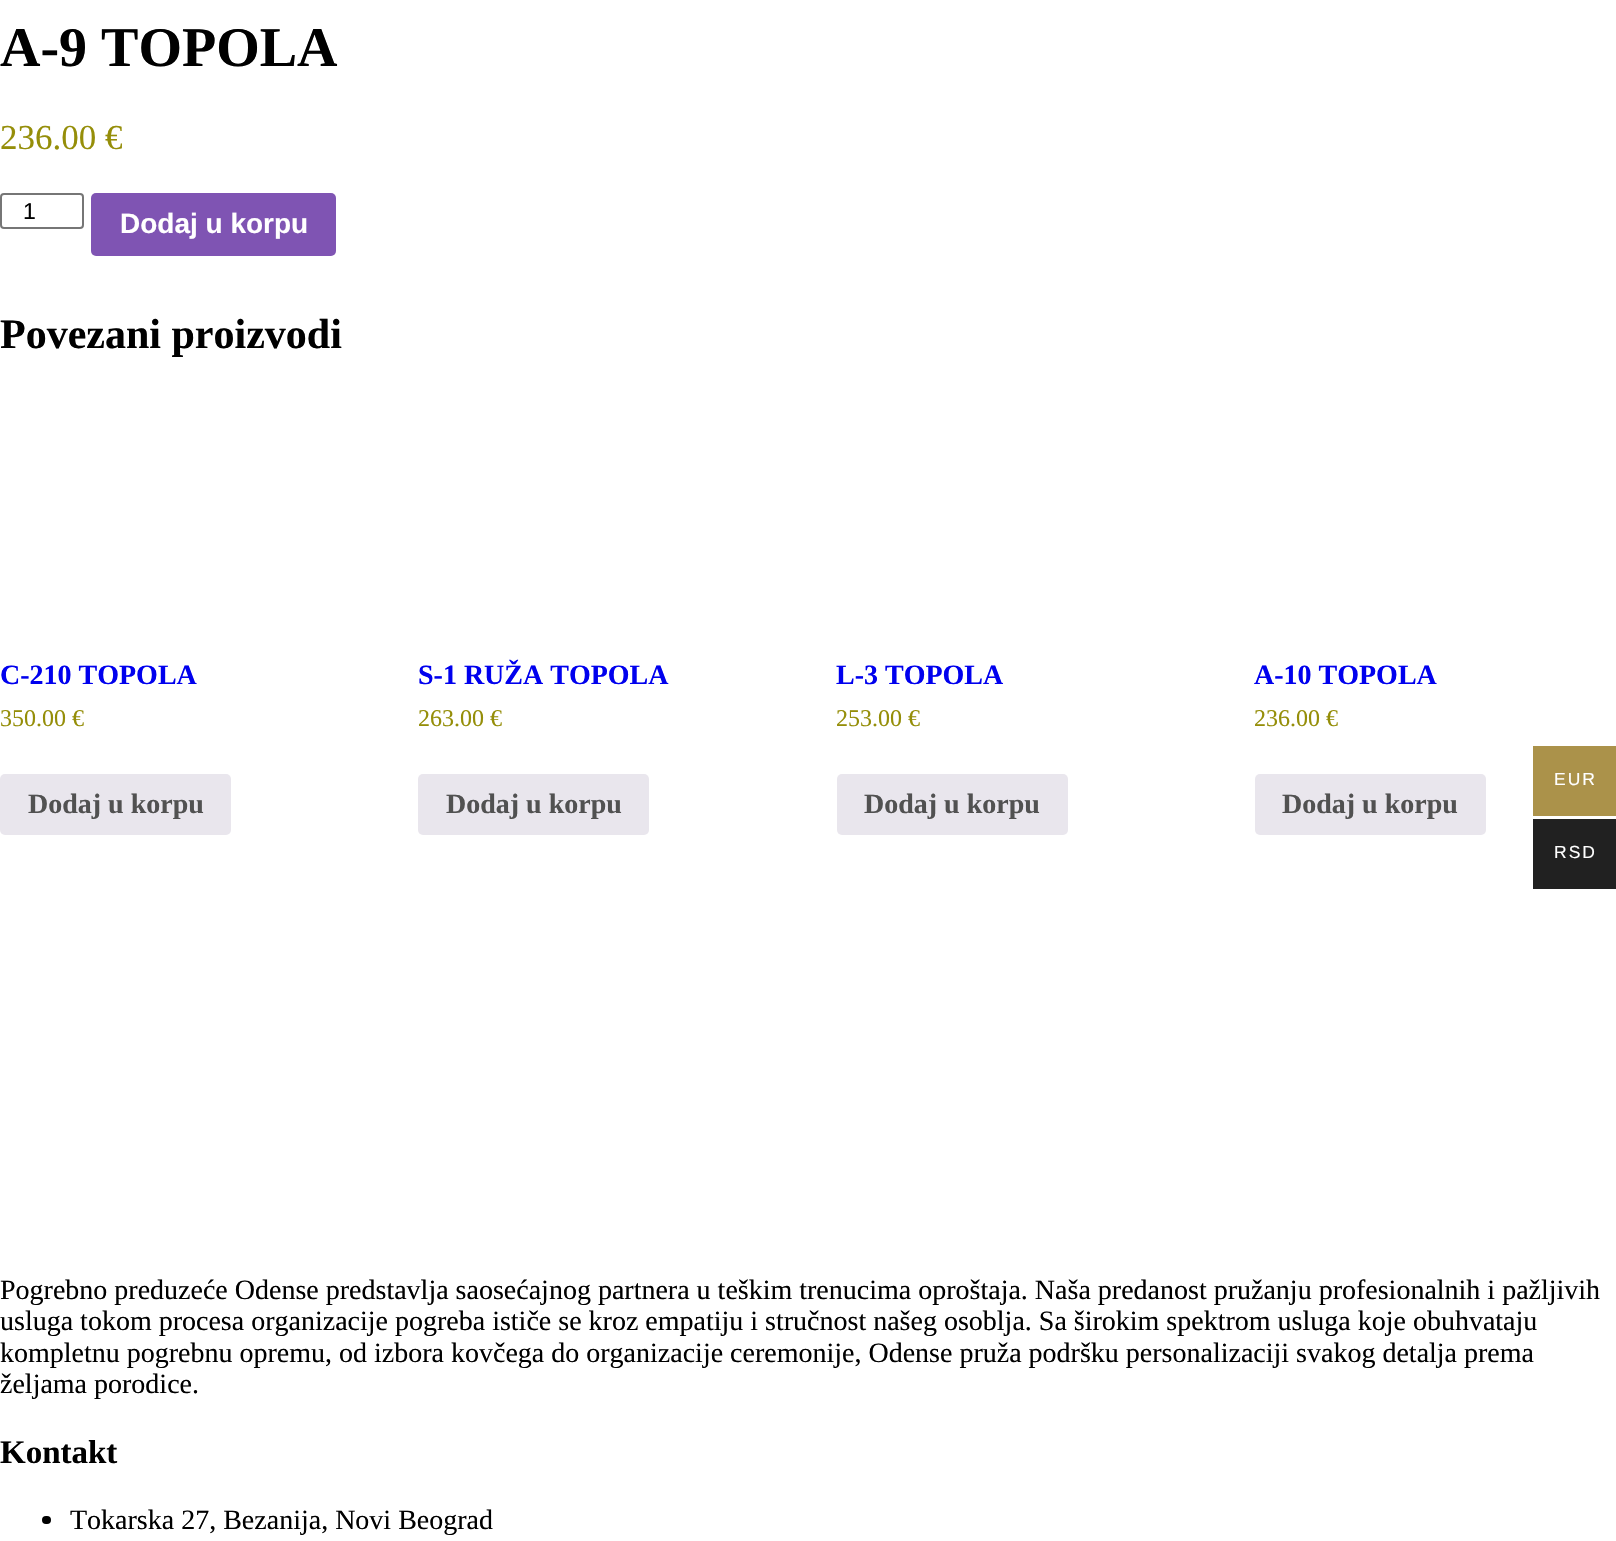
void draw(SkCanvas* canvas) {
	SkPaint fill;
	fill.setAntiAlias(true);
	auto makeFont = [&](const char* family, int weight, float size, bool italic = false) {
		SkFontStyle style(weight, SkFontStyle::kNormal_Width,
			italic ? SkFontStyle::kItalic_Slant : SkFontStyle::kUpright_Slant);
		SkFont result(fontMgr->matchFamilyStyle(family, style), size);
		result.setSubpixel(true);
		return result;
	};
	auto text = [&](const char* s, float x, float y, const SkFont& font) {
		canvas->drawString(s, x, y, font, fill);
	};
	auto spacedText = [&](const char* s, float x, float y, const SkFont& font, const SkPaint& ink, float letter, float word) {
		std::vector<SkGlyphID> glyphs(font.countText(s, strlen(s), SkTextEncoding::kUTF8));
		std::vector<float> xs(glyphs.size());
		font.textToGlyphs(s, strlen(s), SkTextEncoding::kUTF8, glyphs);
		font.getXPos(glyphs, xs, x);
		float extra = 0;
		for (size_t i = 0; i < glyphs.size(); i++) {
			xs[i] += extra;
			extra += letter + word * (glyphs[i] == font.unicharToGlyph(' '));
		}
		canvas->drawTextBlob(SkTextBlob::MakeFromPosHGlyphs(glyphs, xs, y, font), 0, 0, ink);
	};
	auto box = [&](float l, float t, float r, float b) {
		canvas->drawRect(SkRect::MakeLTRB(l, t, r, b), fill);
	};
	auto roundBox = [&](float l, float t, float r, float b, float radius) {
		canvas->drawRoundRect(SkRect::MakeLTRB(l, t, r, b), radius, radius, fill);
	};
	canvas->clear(0xFFFFFFFF);
	fill.setStyle(SkPaint::kStroke_Style);
	fill.setStrokeWidth(2);
	fill.setColor(0xFF767676);
	canvas->drawRoundRect(SkRect::MakeLTRB(1, 194, 83, 228), 3, 3, fill);
	fill.setStyle(SkPaint::kFill_Style);
	fill.setColor(0xFF7F54B3);
	roundBox(91, 193, 336, 256, 5);
	fill.setColor(0xFFE9E6ED);
	roundBox(0, 774, 231, 835, 5);
	roundBox(418, 774, 649, 835, 5);
	roundBox(837, 774, 1068, 835, 5);
	roundBox(1255, 774, 1486, 835, 5);
	fill.setColor(0xFFAB924A);
	box(1533, 746, 1616, 816);
	fill.setColor(0xFF212121);
	box(1533, 819, 1616, 889);
	fill.setColor(0xFF000000);
	roundBox(42, 1516, 51, 1524, 4);
	auto font1 = makeFont("Liberation Serif", 700, 56);
	text("A-9 TOPOLA", 0, 66, font1);
	auto font2 = makeFont("Liberation Serif", 400, 35);
	fill.setColor(0xFF958E09);
	text("236.00 €", 0, 149, font2);
	auto font3 = makeFont("Liberation Sans", 400, 23);
	fill.setColor(0xFF000000);
	text("1", 23, 219, font3);
	auto font4 = makeFont("Liberation Sans", 700, 28);
	fill.setColor(0xFFFFFFFF);
	text("Dodaj u korpu", 120, 233, font4);
	auto font5 = makeFont("Liberation Serif", 700, 42);
	fill.setColor(0xFF000000);
	text("Povezani proizvodi", 0, 348, font5);
	auto font6 = makeFont("Liberation Serif", 700, 28);
	fill.setColor(0xFF0000EE);
	text("C-210 TOPOLA", 0, 684, font6);
	auto font7 = makeFont("Liberation Serif", 400, 24);
	fill.setColor(0xFF958E09);
	text("350.00 €", 0, 726, font7);
	fill.setColor(0xFF515151);
	text("Dodaj u korpu", 28, 813, font6);
	fill.setColor(0xFF0000EE);
	text("S-1 RUŽA TOPOLA", 418, 684, font6);
	fill.setColor(0xFF958E09);
	text("263.00 €", 418, 726, font7);
	fill.setColor(0xFF515151);
	text("Dodaj u korpu", 446, 813, font6);
	fill.setColor(0xFF0000EE);
	text("L-3 TOPOLA", 836, 684, font6);
	fill.setColor(0xFF958E09);
	text("253.00 €", 836, 726, font7);
	fill.setColor(0xFF515151);
	text("Dodaj u korpu", 864, 813, font6);
	fill.setColor(0xFF0000EE);
	text("A-10 TOPOLA", 1254, 684, font6);
	fill.setColor(0xFF958E09);
	text("236.00 €", 1254, 726, font7);
	fill.setColor(0xFF515151);
	text("Dodaj u korpu", 1282, 813, font6);
	auto font8 = makeFont("Liberation Sans", 400, 17.5f);
	fill.setColor(0xFFFFFFFF);
	spacedText("EUR", 1554, 785, font8, fill, 2, 0);
	spacedText("RSD", 1554, 858, font8, fill, 2, 0);
	auto font9 = makeFont("Liberation Serif", 400, 28);
	fill.setColor(0xFF000000);
	text("Pogrebno preduzeće Odense predstavlja saosećajnog partnera u teškim trenucima oproštaja. Naša predanost pružanju profesionalnih i pažljivih", 0, 1299, font9);
	text("usluga tokom procesa organizacije pogreba ističe se kroz empatiju i stručnost našeg osoblja. Sa širokim spektrom usluga koje obuhvataju", 0, 1330, font9);
	text("kompletnu pogrebnu opremu, od izbora kovčega do organizacije ceremonije, Odense pruža podršku personalizaciji svakog detalja prema", 0, 1362, font9);
	text("željama porodice.", 0, 1393, font9);
	auto font10 = makeFont("Liberation Serif", 700, 33);
	text("Kontakt", 0, 1463, font10);
	text("Tokarska 27, Bezanija, Novi Beograd", 70, 1529, font9);
}
